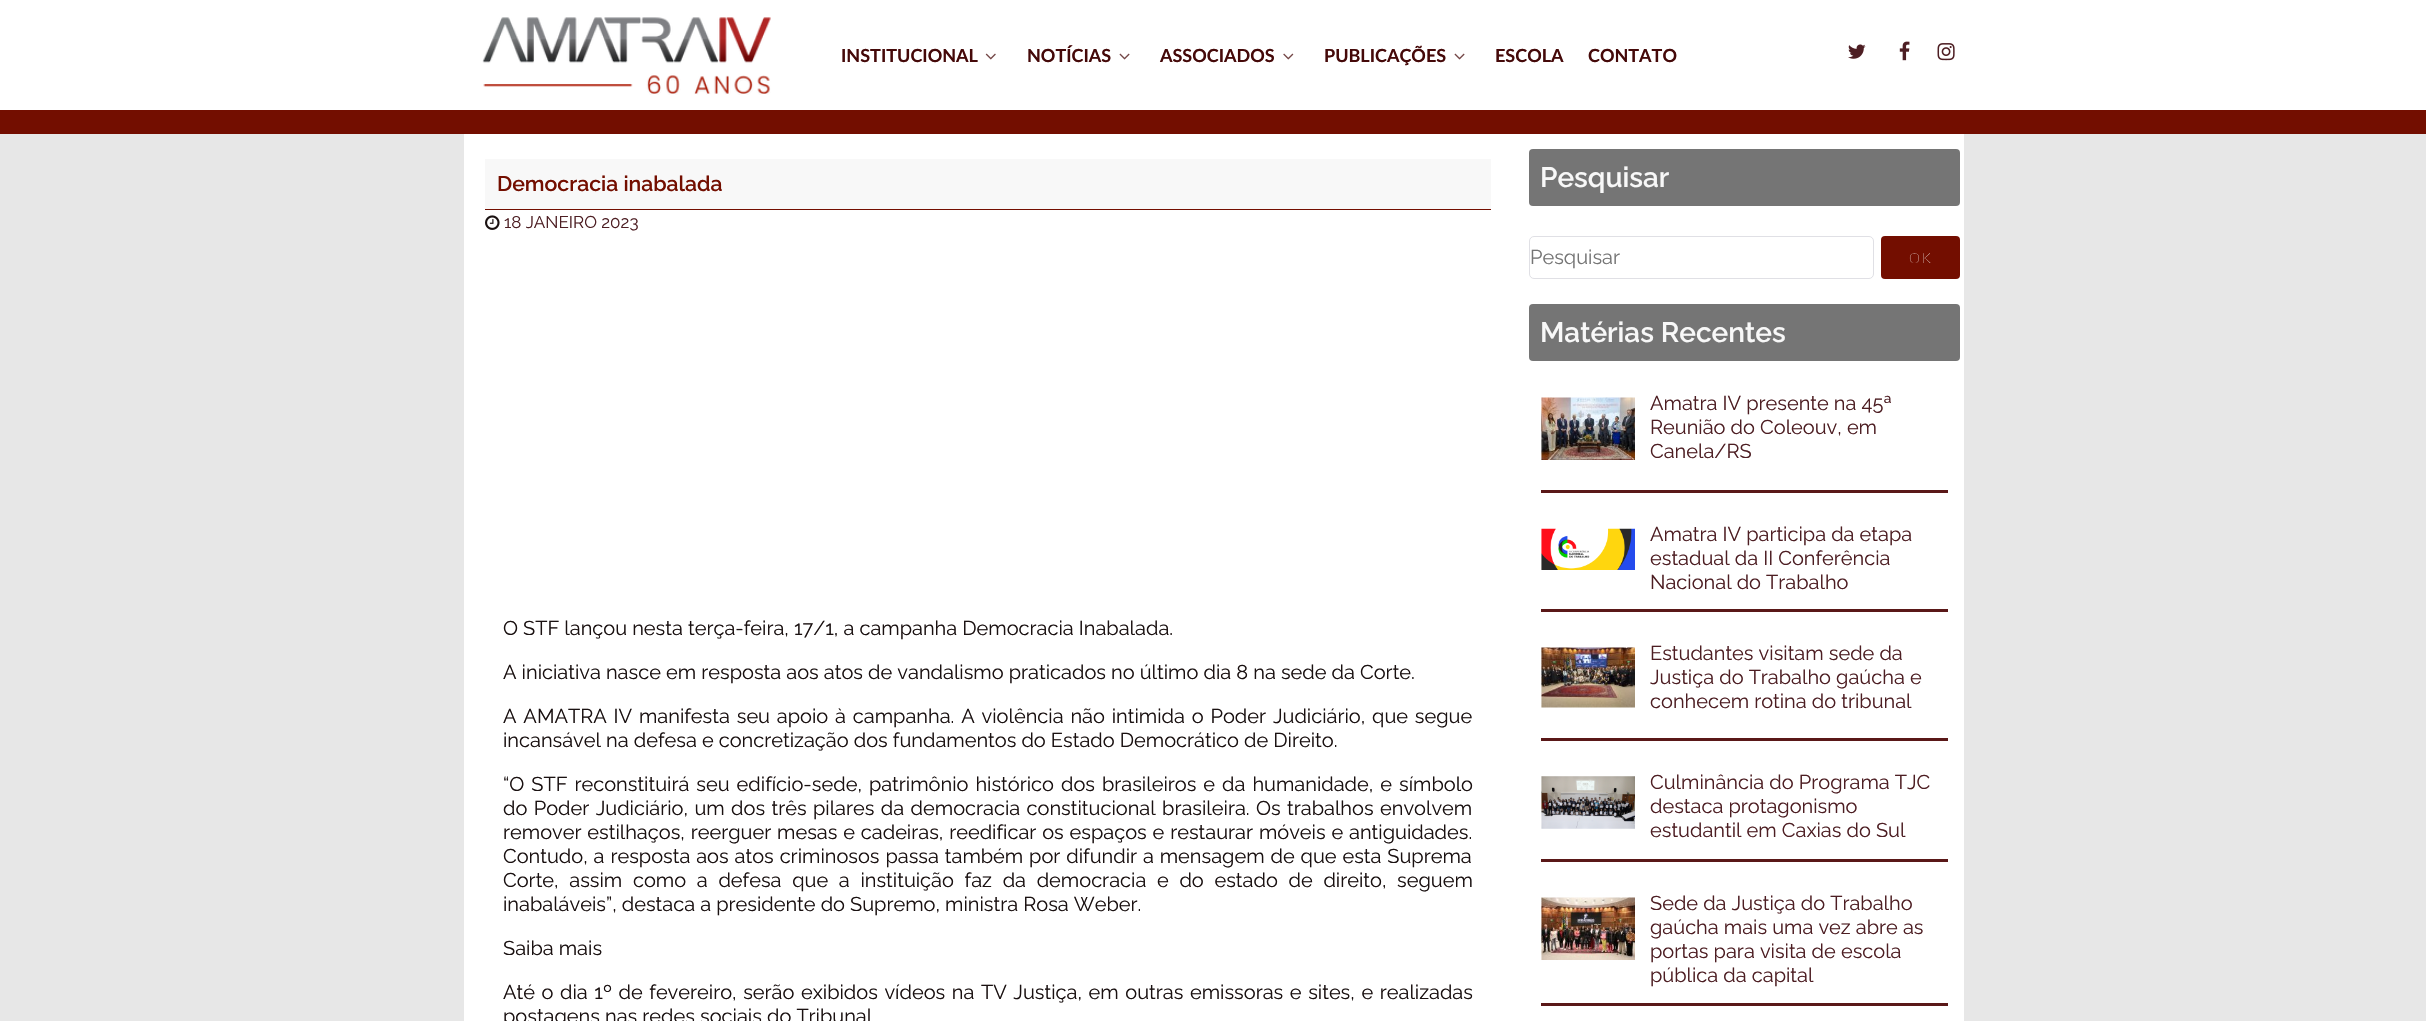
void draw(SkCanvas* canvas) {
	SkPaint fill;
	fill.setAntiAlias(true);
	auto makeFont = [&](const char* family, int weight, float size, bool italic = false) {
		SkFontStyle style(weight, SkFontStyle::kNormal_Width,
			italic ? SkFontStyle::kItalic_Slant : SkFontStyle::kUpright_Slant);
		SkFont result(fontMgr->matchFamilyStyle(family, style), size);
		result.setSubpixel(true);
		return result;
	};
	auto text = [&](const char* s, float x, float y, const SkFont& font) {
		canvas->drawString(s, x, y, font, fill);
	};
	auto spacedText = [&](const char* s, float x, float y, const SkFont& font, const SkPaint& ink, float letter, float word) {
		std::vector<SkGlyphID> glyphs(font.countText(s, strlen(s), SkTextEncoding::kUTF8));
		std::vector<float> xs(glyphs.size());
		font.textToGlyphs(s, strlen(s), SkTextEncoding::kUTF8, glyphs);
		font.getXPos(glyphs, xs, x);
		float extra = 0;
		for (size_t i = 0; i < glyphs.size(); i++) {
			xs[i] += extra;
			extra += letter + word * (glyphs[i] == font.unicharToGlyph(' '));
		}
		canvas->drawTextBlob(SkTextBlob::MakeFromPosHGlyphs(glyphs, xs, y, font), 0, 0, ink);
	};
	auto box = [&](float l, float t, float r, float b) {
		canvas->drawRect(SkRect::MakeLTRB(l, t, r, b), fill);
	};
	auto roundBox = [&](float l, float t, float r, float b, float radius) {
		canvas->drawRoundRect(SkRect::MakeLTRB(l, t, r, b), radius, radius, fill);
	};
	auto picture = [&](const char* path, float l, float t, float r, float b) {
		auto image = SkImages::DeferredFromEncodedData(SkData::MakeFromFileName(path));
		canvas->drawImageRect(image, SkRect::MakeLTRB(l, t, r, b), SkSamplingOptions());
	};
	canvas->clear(0xFFE7E7E7);
	fill.setColor(0xFFFFFFFF);
	box(0, 0, 2426, 110);
	picture("image0.png", 482, 17, 771, 95);
	picture("image1.png", 985, 53, 996, 60);
	picture("image2.png", 1119, 53, 1130, 60);
	picture("image3.png", 1283, 53, 1294, 60);
	picture("image2.png", 1454, 53, 1465, 60);
	picture("image4.png", 1848, 44, 1866, 59);
	picture("image5.png", 1899, 41, 1910, 61);
	picture("image6.png", 1937, 43, 1955, 61);
	fill.setColor(0xFF730E00);
	box(0, 110, 2426, 134);
	fill.setColor(0xFFFFFFFF);
	box(464, 134, 1964, 1021);
	fill.setColor(0xFFF8F8F8);
	box(485, 159, 1491, 209);
	fill.setColor(0xFF730E00);
	box(485, 209, 1491, 210);
	picture("image7.png", 485, 215, 500, 230);
	fill.setColor(0xFF757575);
	roundBox(1529, 149, 1960, 206, 4);
	fill.setStyle(SkPaint::kStroke_Style);
	fill.setStrokeWidth(1);
	fill.setColor(0xFFE0E0E5);
	canvas->drawRoundRect(SkRect::MakeLTRB(1529.5f, 236.5f, 1873.5f, 278.5f), 4.5f, 4.5f, fill);
	fill.setStyle(SkPaint::kFill_Style);
	fill.setColor(0xFF730E00);
	roundBox(1881, 236, 1960, 279, 4);
	fill.setColor(0xFF757575);
	roundBox(1529, 304, 1960, 361, 4);
	fill.setColor(0xFF5A1818);
	box(1541, 490, 1948, 493);
	picture("image8.png", 1541, 397, 1635, 460);
	box(1541, 609, 1948, 612);
	picture("image9.png", 1541, 528, 1635, 570);
	box(1541, 738, 1948, 741);
	picture("image10.png", 1541, 647, 1635, 708);
	box(1541, 859, 1948, 862);
	picture("image11.png", 1541, 776, 1635, 829);
	box(1541, 1003, 1948, 1006);
	picture("image12.png", 1541, 897, 1635, 960);
	auto font1 = makeFont("Lato", 700, 18);
	fill.setColor(0xFF450909);
	text("INSTITUCIONAL", 841, 62, font1);
	text("NOTÍCIAS", 1027, 62, font1);
	text("ASSOCIADOS", 1160, 62, font1);
	text("PUBLICAÇÕES", 1324, 62, font1);
	text("ESCOLA", 1495, 62, font1);
	text("CONTATO", 1588, 62, font1);
	auto font2 = makeFont("Raleway", 600, 21.25f);
	fill.setColor(0xFF730E00);
	text("Democracia inabalada", 497, 191, font2);
	auto font3 = makeFont("Raleway", 400, 17);
	fill.setColor(0xFF4D1E23);
	text("18 JANEIRO 2023", 504, 228, font3);
	auto font4 = makeFont("Raleway", 400, 20);
	fill.setColor(0xFF1A1111);
	text("O STF lançou nesta terça-feira, 17/1, a campanha Democracia Inabalada.", 503, 635, font4);
	text("A iniciativa nasce em resposta aos atos de vandalismo praticados no último dia 8 na sede da Corte.", 503, 679, font4);
	spacedText("A AMATRA IV manifesta seu apoio à campanha. A violência não intimida o Poder Judiciário, que segue", 503, 723, font4, fill, 0, 1.75f);
	text("incansável na defesa e concretização dos fundamentos do Estado Democrático de Direito.", 503, 747, font4);
	spacedText("“O STF reconstituirá seu edifício-sede, patrimônio histórico dos brasileiros e da humanidade, e símbolo", 503, 791, font4, fill, 0, 1.9f);
	spacedText("do Poder Judiciário, um dos três pilares da democracia constitucional brasileira. Os trabalhos envolvem", 503, 815, font4, fill, 0, 1.3f);
	spacedText("remover estilhaços, reerguer mesas e cadeiras, reedificar os espaços e restaurar móveis e antiguidades.", 503, 839, font4, fill, 0, 0.75f);
	spacedText("Contudo, a resposta aos atos criminosos passa também por difundir a mensagem de que esta Suprema", 503, 863, font4, fill, 0, 0.8f);
	spacedText("Corte, assim como a defesa que a instituição faz da democracia e do estado de direito, seguem", 503, 887, font4, fill, 0, 5.6f);
	text("inabaláveis”, destaca a presidente do Supremo, ministra Rosa Weber.", 503, 911, font4);
	text("Saiba mais", 503, 955, font4);
	spacedText("Até o dia 1º de fevereiro, serão exibidos vídeos na TV Justiça, em outras emissoras e sites, e realizadas", 503, 999, font4, fill, 0, 1.5f);
	text("postagens nas redes sociais do Tribunal", 503, 1023, font4);
	auto font5 = makeFont("Raleway", 600, 28);
	fill.setColor(0xFFF8F8F8);
	text("Pesquisar", 1540, 187, font5);
	fill.setColor(0xFF757575);
	text("Pesquisar", 1530, 264, font4);
	auto font6 = makeFont("Lato", 200, 14);
	fill.setColor(0xFFFFFFFF);
	spacedText("OK", 1909, 263, font6, fill, 2, 0);
	fill.setColor(0xFFF8F8F8);
	text("Matérias Recentes", 1540, 342, font5);
	fill.setColor(0xFF4D1E23);
	text("Amatra IV presente na 45ª", 1650, 410, font4);
	text("Reunião do Coleouv, em", 1650, 434, font4);
	text("Canela/RS", 1650, 458, font4);
	text("Amatra IV participa da etapa", 1650, 541, font4);
	text("estadual da II Conferência", 1650, 565, font4);
	text("Nacional do Trabalho", 1650, 589, font4);
	text("Estudantes visitam sede da", 1650, 660, font4);
	text("Justiça do Trabalho gaúcha e", 1650, 684, font4);
	text("conhecem rotina do tribunal", 1650, 708, font4);
	text("Culminância do Programa TJC", 1650, 789, font4);
	text("destaca protagonismo", 1650, 813, font4);
	text("estudantil em Caxias do Sul", 1650, 837, font4);
	text("Sede da Justiça do Trabalho", 1650, 910, font4);
	text("gaúcha mais uma vez abre as", 1650, 934, font4);
	text("portas para visita de escola", 1650, 958, font4);
	text("pública da capital", 1650, 982, font4);
}
